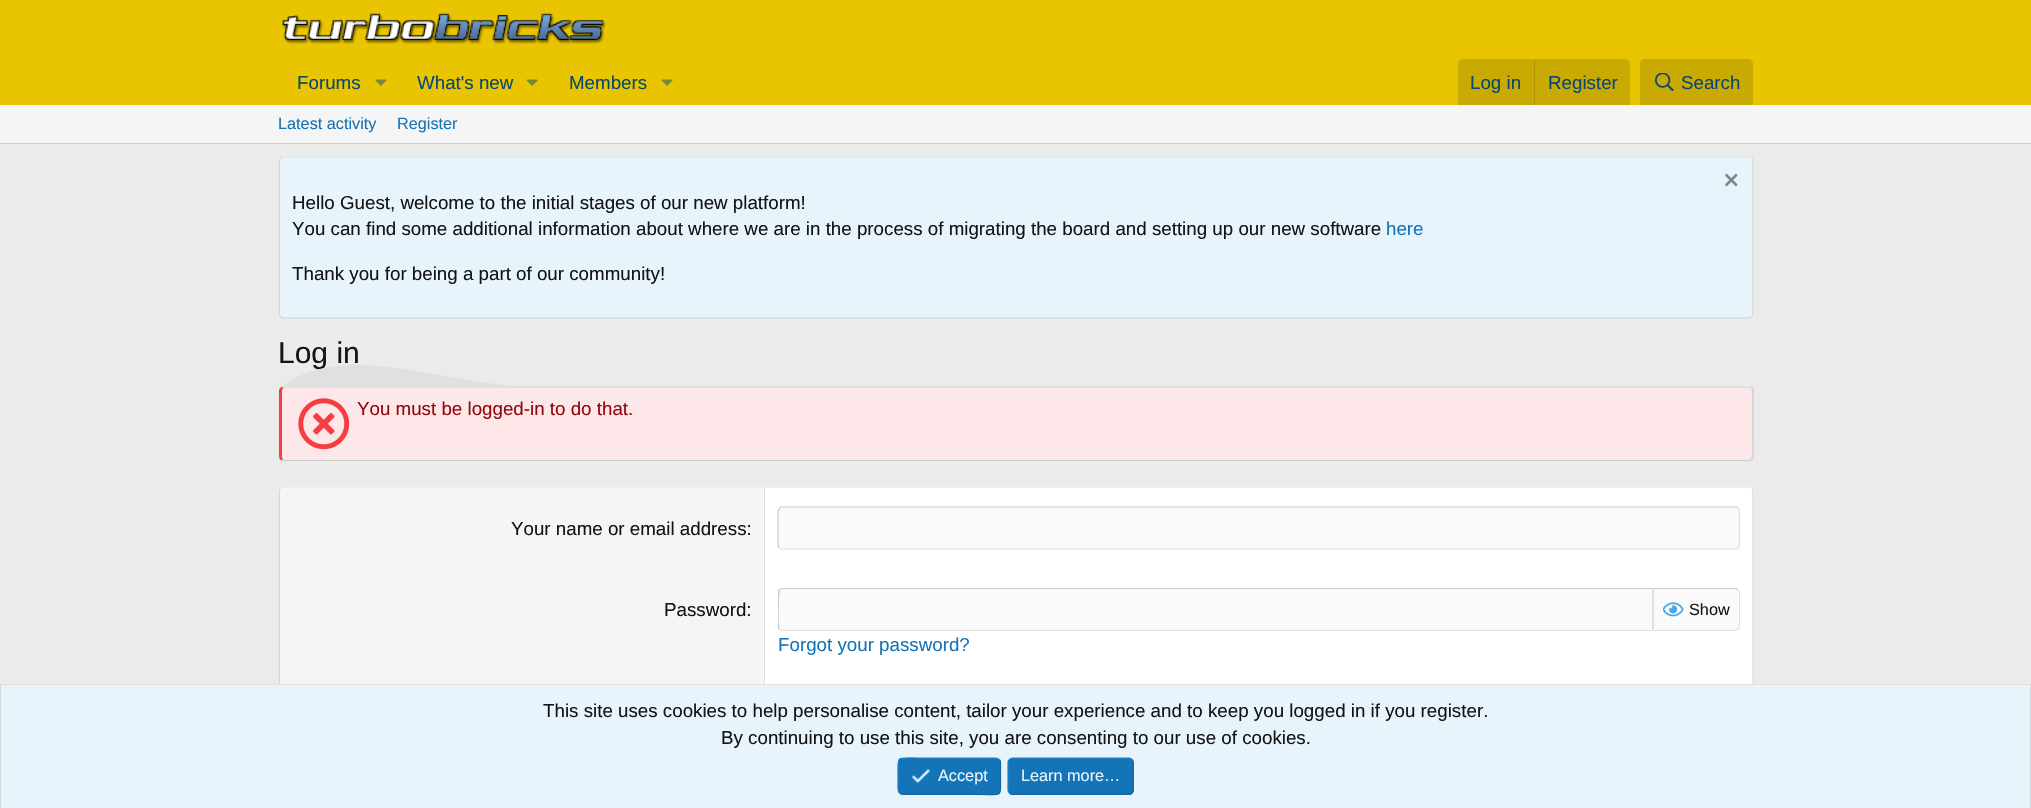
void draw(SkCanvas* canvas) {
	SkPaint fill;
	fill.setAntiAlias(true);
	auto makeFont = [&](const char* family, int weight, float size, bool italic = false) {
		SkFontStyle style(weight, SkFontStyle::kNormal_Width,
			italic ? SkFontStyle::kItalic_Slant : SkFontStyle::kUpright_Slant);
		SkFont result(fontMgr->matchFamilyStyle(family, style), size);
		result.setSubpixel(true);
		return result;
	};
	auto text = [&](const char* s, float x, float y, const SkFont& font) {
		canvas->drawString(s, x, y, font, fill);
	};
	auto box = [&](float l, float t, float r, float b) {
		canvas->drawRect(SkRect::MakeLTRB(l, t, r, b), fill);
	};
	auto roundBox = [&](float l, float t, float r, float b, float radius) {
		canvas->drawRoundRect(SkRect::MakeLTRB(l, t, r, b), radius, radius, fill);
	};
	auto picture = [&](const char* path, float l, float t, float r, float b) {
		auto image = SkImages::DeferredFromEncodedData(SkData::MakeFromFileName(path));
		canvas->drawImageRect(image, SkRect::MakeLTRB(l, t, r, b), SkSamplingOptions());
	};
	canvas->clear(0xFFEBEBEB);
	fill.setColor(0xFFE8C500);
	box(0, 0, 2031, 105);
	picture("image0.png", 282, 13, 606, 44);
	picture("image1.png", 375, 79, 386, 86);
	picture("image2.png", 526, 79, 538, 86);
	picture("image2.png", 661, 79, 673, 86);
	fill.setColor(0xFFC8AA03);
	canvas->drawPath(SkPathBuilder().moveTo(1463, 59).lineTo(1625, 59).cubicTo(1628, 59, 1630, 61, 1630, 64).lineTo(1630, 105).lineTo(1458, 105).lineTo(1458, 64).cubicTo(1458, 61, 1460, 59, 1463, 59).close().detach(), fill);
	fill.setColor(0xFFAD9406);
	box(1534, 59, 1535, 105);
	fill.setColor(0xFFC8AA03);
	canvas->drawPath(SkPathBuilder().moveTo(1645, 59).lineTo(1748, 59).cubicTo(1751, 59, 1753, 61, 1753, 64).lineTo(1753, 105).lineTo(1640, 105).lineTo(1640, 64).cubicTo(1640, 61, 1642, 59, 1645, 59).close().detach(), fill);
	picture("image3.png", 1655, 73, 1674, 91);
	fill.setColor(0xFFF5F5F5);
	box(0, 105, 2031, 143);
	fill.setColor(0xFFCCCCCC);
	box(0, 143, 2031, 144);
	fill.setColor(0xFFE8F4FC);
	roundBox(279, 156, 1754, 319, 5);
	fill.setStyle(SkPaint::kStroke_Style);
	fill.setStrokeWidth(1.2f);
	fill.setColor(0xFFE0E0E0);
	canvas->drawPath(SkPathBuilder().moveTo(280.5f, 158).lineTo(284, 157).lineTo(1749, 157).lineTo(1752, 158).detach(), fill);
	fill.setColor(0xFFD6D6D6);
	canvas->drawPath(SkPathBuilder().moveTo(1752, 158).cubicTo(1752.5f, 159, 1753, 160, 1753, 161).lineTo(1753, 314).cubicTo(1753, 315, 1752.5f, 316, 1752, 317).detach(), fill);
	fill.setColor(0xFFCCCCCC);
	canvas->drawPath(SkPathBuilder().moveTo(1752, 317).lineTo(1749, 318).lineTo(284, 318).lineTo(280.5f, 317).detach(), fill);
	fill.setColor(0xFFD6D6D6);
	canvas->drawPath(SkPathBuilder().moveTo(280.5f, 317).cubicTo(280, 316, 279.5f, 315, 279.5f, 314).lineTo(279.5f, 161).cubicTo(279.5f, 160, 280, 159, 280.5f, 158).detach(), fill);
	picture("image4.png", 1725, 173, 1738, 187);
	fill.setStyle(SkPaint::kFill_Style);
	fill.setColor(0xFFFEE7E8);
	canvas->drawPath(SkPathBuilder().moveTo(284, 388).lineTo(1749, 388).cubicTo(1751, 388, 1752, 389, 1752, 391).lineTo(1752, 456).cubicTo(1752, 458, 1751, 460, 1749, 460).lineTo(284, 460).cubicTo(283, 460, 282, 458, 282, 456).lineTo(282, 391).cubicTo(282, 389, 283, 388, 284, 388).close().detach(), fill);
	picture("image5.png", 298, 398, 350, 450);
	fill.setColor(0xFFFFFFFF);
	roundBox(279, 486, 1754, 794, 5);
	fill.setStyle(SkPaint::kStroke_Style);
	fill.setColor(0xFFE0E0E0);
	canvas->drawPath(SkPathBuilder().moveTo(280.5f, 488).lineTo(284, 487).lineTo(1749, 487).lineTo(1752, 488).detach(), fill);
	fill.setColor(0xFFD6D6D6);
	canvas->drawPath(SkPathBuilder().moveTo(1752, 488).cubicTo(1752.5f, 489, 1753, 490, 1753, 491).lineTo(1753, 789).cubicTo(1753, 790, 1752.5f, 791, 1752, 792).detach(), fill);
	canvas->drawPath(SkPathBuilder().moveTo(280.5f, 792).cubicTo(280, 791, 279.5f, 790, 279.5f, 789).lineTo(279.5f, 491).cubicTo(279.5f, 490, 280, 489, 280.5f, 488).detach(), fill);
	fill.setStyle(SkPaint::kFill_Style);
	fill.setColor(0xFFF5F5F5);
	canvas->drawPath(SkPathBuilder().moveTo(284, 488).lineTo(765, 488).lineTo(765, 569).lineTo(280, 569).lineTo(280, 492).cubicTo(280, 490, 282, 488, 284, 488).close().detach(), fill);
	fill.setColor(0xFFE0E0E0);
	box(764, 488, 765, 684);
	fill.setColor(0xFFFAFAFA);
	roundBox(778, 506, 1740, 550, 5);
	fill.setStyle(SkPaint::kStroke_Style);
	fill.setColor(0xFFE0E0E0);
	canvas->drawPath(SkPathBuilder().moveTo(1738, 508).cubicTo(1740, 510.5f, 1739.5f, 514.5f, 1739.5f, 517).lineTo(1739.5f, 545.5f).lineTo(1738.5f, 547.5f).lineTo(1736.5f, 549).lineTo(781, 549).lineTo(779.5f, 548).detach(), fill);
	fill.setColor(0xFFCCCCCC);
	canvas->drawPath(SkPathBuilder().moveTo(779.5f, 548).cubicTo(777.5f, 546, 778, 542, 778, 539.5f).lineTo(778, 511).lineTo(779, 509).lineTo(781, 507).lineTo(1736.5f, 507).lineTo(1738, 508).detach(), fill);
	fill.setStyle(SkPaint::kFill_Style);
	fill.setColor(0xFFF5F5F5);
	box(280, 569, 764, 684);
	fill.setColor(0xFFFAFAFA);
	canvas->drawPath(SkPathBuilder().moveTo(783, 588).lineTo(1653, 588).lineTo(1653, 631).lineTo(783, 631).cubicTo(780, 631, 778, 629, 778, 626).lineTo(778, 593).cubicTo(778, 590, 780, 588, 783, 588).close().detach(), fill);
	fill.setColor(0xFFCCCCCC);
	canvas->drawPath(SkPathBuilder().moveTo(782, 588).lineTo(1652, 588).lineTo(1652, 589).lineTo(782, 589).lineTo(780, 590).lineTo(779, 589).close().detach(), fill);
	fill.setColor(0xFFE0E0E0);
	canvas->drawPath(SkPathBuilder().moveTo(780, 629).lineTo(779, 630).cubicTo(780, 630, 781, 631, 782, 631).lineTo(1652, 631).lineTo(1652, 630).lineTo(782, 630).close().detach(), fill);
	fill.setColor(0xFFCCCCCC);
	canvas->drawPath(SkPathBuilder().moveTo(780, 629).lineTo(779, 630).cubicTo(778, 629, 778, 627, 778, 626).lineTo(778, 592).cubicTo(778, 591, 778, 590, 779, 589).lineTo(780, 590).cubicTo(779, 591, 778, 627, 780, 629).close().detach(), fill);
	fill.setColor(0xFFFAFAFA);
	canvas->drawPath(SkPathBuilder().moveTo(1653, 588).lineTo(1735, 588).cubicTo(1738, 588, 1740, 590, 1740, 593).lineTo(1740, 626).cubicTo(1740, 629, 1738, 631, 1735, 631).lineTo(1653, 631).close().detach(), fill);
	fill.setColor(0xFFCCCCCC);
	canvas->drawPath(SkPathBuilder().moveTo(1654, 589).lineTo(1735, 589).lineTo(1738, 590).lineTo(1738, 589).cubicTo(1738, 588, 1736, 588, 1735, 588).lineTo(1653, 588).close().detach(), fill);
	fill.setColor(0xFFE0E0E0);
	canvas->drawPath(SkPathBuilder().moveTo(1740, 626).lineTo(1740, 592).cubicTo(1740, 591, 1739, 590, 1738, 589).lineTo(1738, 590).cubicTo(1738, 590, 1739, 591, 1739, 592).lineTo(1739, 626).cubicTo(1739, 627, 1738, 628, 1738, 629).lineTo(1738, 630).cubicTo(1739, 629, 1740, 628, 1740, 626).close().detach(), fill);
	canvas->drawPath(SkPathBuilder().moveTo(1738, 630).lineTo(1736, 631).lineTo(1653, 631).lineTo(1654, 630).lineTo(1735, 630).lineTo(1738, 629).close().detach(), fill);
	canvas->drawPath(SkPathBuilder().moveTo(1654, 589).lineTo(1654, 630).lineTo(1652, 631).lineTo(1652, 588).lineTo(1653, 588).close().detach(), fill);
	picture("image6.png", 1663, 602, 1684, 617);
	fill.setColor(0xFFE8F4FC);
	box(1, 685, 2030, 808);
	fill.setColor(0xFFE0E0E0);
	box(0, 684, 2031, 685);
	fill.setColor(0xFFD6D6D6);
	box(2030, 684, 2031, 808);
	box(0, 684, 1, 808);
	fill.setColor(0xFF1474B8);
	roundBox(898, 758, 1001, 795, 5);
	fill.setStyle(SkPaint::kStroke_Style);
	fill.setColor(0xFF1265A1);
	canvas->drawPath(SkPathBuilder().moveTo(999.5f, 759.5f).cubicTo(1001.5f, 761.5f, 1000.5f, 764.5f, 1000.5f, 767).lineTo(1000.5f, 776).cubicTo(1000.5f, 797.5f, 1003.5f, 794.5f, 980.5f, 794.5f).lineTo(902.5f, 794.5f).lineTo(899.5f, 793).detach(), fill);
	fill.setColor(0xFF1782CF);
	canvas->drawPath(SkPathBuilder().moveTo(899.5f, 793).cubicTo(897.5f, 791, 898, 788, 898, 785.5f).lineTo(898, 776).cubicTo(898, 755, 895.5f, 758, 918, 758).lineTo(996, 758).lineTo(999.5f, 759.5f).detach(), fill);
	picture("image7.png", 912, 769, 931, 784);
	fill.setStyle(SkPaint::kFill_Style);
	fill.setColor(0xFF1474B8);
	roundBox(1008, 758, 1134, 795, 5);
	fill.setStyle(SkPaint::kStroke_Style);
	fill.setColor(0xFF1265A1);
	canvas->drawPath(SkPathBuilder().moveTo(1132, 759.5f).cubicTo(1132.5f, 760, 1133, 761.5f, 1133, 762.5f).lineTo(1133, 790).cubicTo(1133, 791, 1132.5f, 792.5f, 1132, 793).cubicTo(1131, 794, 1130, 794.5f, 1129, 794.5f).lineTo(1012.5f, 794.5f).cubicTo(1011.5f, 794.5f, 1010, 794, 1009.5f, 793).detach(), fill);
	fill.setColor(0xFF1782CF);
	canvas->drawPath(SkPathBuilder().moveTo(1009.5f, 793).cubicTo(1008.5f, 792.5f, 1008, 791, 1008, 790).lineTo(1008, 762.5f).cubicTo(1008, 761.5f, 1008.5f, 760, 1009.5f, 759.5f).cubicTo(1010, 758.5f, 1011.5f, 758, 1012.5f, 758).lineTo(1129, 758).cubicTo(1130, 758, 1131, 758.5f, 1132, 759.5f).detach(), fill);
	auto font1 = makeFont("Liberation Sans", 400, 18.75f);
	fill.setStyle(SkPaint::kFill_Style);
	fill.setColor(0xFF0B476F);
	text("Forums", 297, 89, font1);
	text("What's new", 417, 89, font1);
	text("Members", 569, 89, font1);
	text("Log in", 1470, 89, font1);
	text("Register", 1548, 89, font1);
	text("Search", 1681, 89, font1);
	auto font2 = makeFont("Liberation Sans", 400, 16.25f);
	fill.setColor(0xFF1474B8);
	text("Latest activity", 278, 129, font2);
	text("Register", 397, 129, font2);
	fill.setColor(0xFF141414);
	text("Hello Guest, welcome to the initial stages of our new platform!", 292, 209, font1);
	text("You can find some additional information about where we are in the process of migrating the board and setting up our new software", 292, 235, font1);
	fill.setColor(0xFF1474B8);
	text("here", 1386, 235, font1);
	fill.setColor(0xFF141414);
	text("Thank you for being a part of our community!", 292, 280, font1);
	auto font3 = makeFont("Liberation Sans", 400, 30);
	text("Log in", 278, 363, font3);
	fill.setColor(0xFFE0E0E0);
	canvas->drawPath(SkPathBuilder().moveTo(284, 388).lineTo(281, 387).cubicTo(347, 338, 445, 386, 527, 386).lineTo(1751, 386).lineTo(1753, 387).lineTo(1751, 389).lineTo(1749, 388).close().detach(), fill);
	fill.setColor(0xFFD6D6D6);
	canvas->drawPath(SkPathBuilder().moveTo(1754, 458).lineTo(1752, 460).lineTo(1751, 459).cubicTo(1753, 456, 1752, 445, 1752, 445).lineTo(1752, 391).lineTo(1751, 389).lineTo(1753, 387).lineTo(1754, 389).close().detach(), fill);
	fill.setColor(0xFFCCCCCC);
	canvas->drawPath(SkPathBuilder().moveTo(1752, 460).lineTo(1749, 461).lineTo(284, 461).lineTo(281, 460).lineTo(283, 460).lineTo(1749, 460).lineTo(1751, 459).close().detach(), fill);
	fill.setColor(0xFFF53D43);
	canvas->drawPath(SkPathBuilder().moveTo(284, 388).cubicTo(283, 388, 282, 390, 282, 391).lineTo(282, 457).lineTo(283, 460).lineTo(281, 460).cubicTo(280, 460, 279, 458, 279, 456).lineTo(279, 391).cubicTo(279, 389, 280, 388, 281, 387).close().detach(), fill);
	fill.setColor(0xFF91080C);
	text("You must be logged-in to do that.", 357, 415, font1);
	fill.setColor(0xFF141414);
	text("Your name or email address:", 511, 535, font1);
	text("Password:", 664, 616, font1);
	text("Show", 1689, 615, font2);
	fill.setColor(0xFF1474B8);
	text("Forgot your password?", 778, 651, font1);
	fill.setColor(0xFF141414);
	text("This site uses cookies to help personalise content, tailor your experience and to keep you logged in if you register.", 543, 717, font1);
	text("By continuing to use this site, you are consenting to our use of cookies.", 721, 744, font1);
	fill.setColor(0xFFE8F4FC);
	text("Accept", 938, 781, font2);
	text("Learn more…", 1021, 781, font2);
}
